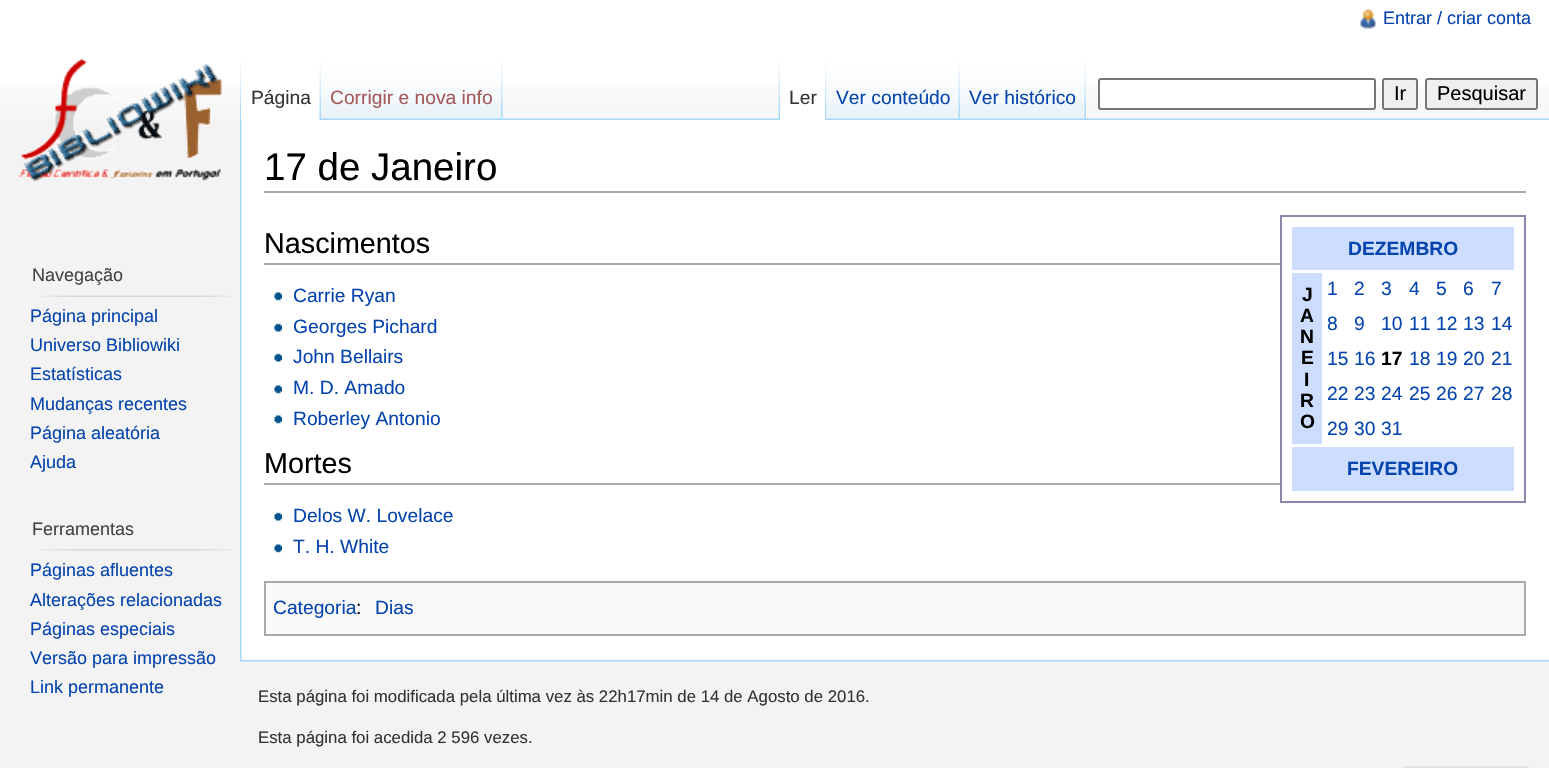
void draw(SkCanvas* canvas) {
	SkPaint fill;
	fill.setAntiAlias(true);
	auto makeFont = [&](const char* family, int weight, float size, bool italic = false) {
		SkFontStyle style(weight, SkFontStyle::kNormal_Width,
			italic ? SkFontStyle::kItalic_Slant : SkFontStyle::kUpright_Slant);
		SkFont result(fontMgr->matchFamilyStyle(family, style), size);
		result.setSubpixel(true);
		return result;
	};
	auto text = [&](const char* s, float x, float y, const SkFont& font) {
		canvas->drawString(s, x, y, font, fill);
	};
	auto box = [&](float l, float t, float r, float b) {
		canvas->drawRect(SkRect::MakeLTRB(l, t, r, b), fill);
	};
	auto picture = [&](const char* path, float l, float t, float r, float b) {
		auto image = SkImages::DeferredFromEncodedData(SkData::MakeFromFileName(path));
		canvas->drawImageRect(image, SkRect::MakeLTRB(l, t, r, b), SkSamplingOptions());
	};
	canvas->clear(0xFFF3F3F3);
	fill.setColor(0xFFFFFFFF);
	box(0, 0, 1549, 85);
	picture("image0.png", 0, 85, 1549, 120);
	picture("image1.png", 1360, 9, 1376, 29);
	picture("image11.png", 240, 118, 1549, 120);
	picture("image2.png", 240, 60, 241, 119);
	box(241, 85, 321, 120);
	picture("image3.png", 319, 61, 321, 120);
	fill.setColor(0xFFF3F3F3);
	box(502, 60, 503, 120);
	picture("image4.png", 321, 60, 503, 120);
	picture("image5.png", 501, 61, 503, 120);
	picture("image6.png", 778, 60, 780, 119);
	fill.setColor(0xFFFFFFFF);
	box(780, 85, 827, 120);
	picture("image7.png", 825, 61, 827, 120);
	picture("image8.png", 826, 60, 960, 120);
	picture("image9.png", 958, 61, 960, 119);
	picture("image10.png", 960, 60, 1086, 120);
	picture("image9.png", 1084, 61, 1086, 119);
	canvas->drawRoundRect(SkRect::MakeLTRB(1099, 79, 1375, 109), 2, 2, fill);
	fill.setStyle(SkPaint::kStroke_Style);
	fill.setStrokeWidth(2);
	fill.setColor(0xFF767676);
	canvas->drawRoundRect(SkRect::MakeLTRB(1099, 79, 1375, 109), 2, 2, fill);
	fill.setStyle(SkPaint::kFill_Style);
	fill.setColor(0xFFEFEFEF);
	canvas->drawRoundRect(SkRect::MakeLTRB(1383, 79, 1417, 109), 2, 2, fill);
	fill.setStyle(SkPaint::kStroke_Style);
	fill.setColor(0xFF767676);
	canvas->drawRoundRect(SkRect::MakeLTRB(1383, 79, 1417, 109), 2, 2, fill);
	fill.setStyle(SkPaint::kFill_Style);
	fill.setColor(0xFFEFEFEF);
	canvas->drawRoundRect(SkRect::MakeLTRB(1426, 79, 1537, 109), 2, 2, fill);
	fill.setStyle(SkPaint::kStroke_Style);
	fill.setColor(0xFF767676);
	canvas->drawRoundRect(SkRect::MakeLTRB(1426, 79, 1537, 109), 2, 2, fill);
	picture("image12.png", 19, 58, 222, 182);
	picture("image13.png", 40, 295, 232, 297);
	picture("image14.png", 40, 549, 232, 551);
	fill.setStyle(SkPaint::kFill_Style);
	fill.setColor(0xFFFFFFFF);
	box(241, 120, 1549, 660);
	picture("image15.png", 240, 120, 242, 660);
	fill.setColor(0xFFAAAAAA);
	box(264, 191, 1526, 193);
	box(264, 263, 1280, 265);
	fill.setStyle(SkPaint::kStroke_Style);
	fill.setColor(0xFF8888AA);
	canvas->drawRect(SkRect::MakeLTRB(1281, 216, 1525, 502), fill);
	fill.setStyle(SkPaint::kFill_Style);
	fill.setColor(0xFFCCDDFF);
	box(1292, 227, 1514, 270);
	box(1292, 273, 1322, 444);
	box(1292, 447, 1514, 491);
	picture("image16.png", 274, 292, 282, 301);
	picture("image17.png", 274, 323, 282, 332);
	picture("image17.png", 274, 353, 282, 362);
	picture("image16.png", 274, 385, 282, 394);
	picture("image16.png", 274, 415, 282, 424);
	fill.setColor(0xFFAAAAAA);
	box(264, 483, 1280, 485);
	picture("image17.png", 274, 512, 282, 521);
	picture("image16.png", 274, 544, 282, 553);
	fill.setColor(0xFFF9F9F9);
	canvas->drawRect(SkRect::MakeLTRB(265, 582, 1525, 635), fill);
	fill.setStyle(SkPaint::kStroke_Style);
	fill.setColor(0xFFAAAAAA);
	canvas->drawRect(SkRect::MakeLTRB(265, 582, 1525, 635), fill);
	picture("image18.png", 240, 660, 1549, 662);
	picture("image19.png", 1401, 766, 1530, 768);
	auto font1 = makeFont("Liberation Sans", 400, 18);
	fill.setStyle(SkPaint::kFill_Style);
	fill.setColor(0xFF0645AD);
	text("Entrar / criar conta", 1383, 24, font1);
	auto font2 = makeFont("Liberation Sans", 400, 19.25f);
	fill.setColor(0xFF333333);
	text("Página", 251, 104, font2);
	fill.setColor(0xFFA55858);
	text("Corrigir e nova info", 330, 104, font2);
	fill.setColor(0xFF333333);
	text("Ler", 789, 104, font2);
	fill.setColor(0xFF0645AD);
	text("Ver conteúdo", 836, 104, font2);
	text("Ver histórico", 969, 104, font2);
	auto font3 = makeFont("Liberation Sans", 400, 20);
	fill.setColor(0xFF000000);
	text("Ir", 1394, 100, font3);
	text("Pesquisar", 1437, 100, font3);
	fill.setColor(0xFF444444);
	text("Navegação", 32, 281, font1);
	fill.setColor(0xFF0645AD);
	text("Página principal", 30, 322, font1);
	text("Universo Bibliowiki", 30, 351, font1);
	text("Estatísticas", 30, 380, font1);
	text("Mudanças recentes", 30, 410, font1);
	text("Página aleatória", 30, 439, font1);
	text("Ajuda", 30, 468, font1);
	fill.setColor(0xFF444444);
	text("Ferramentas", 32, 535, font1);
	fill.setColor(0xFF0645AD);
	text("Páginas afluentes", 30, 576, font1);
	text("Alterações relacionadas", 30, 606, font1);
	text("Páginas especiais", 30, 635, font1);
	text("Versão para impressão", 30, 664, font1);
	text("Link permanente", 30, 693, font1);
	auto font4 = makeFont("Liberation Sans", 400, 38.5f);
	fill.setColor(0xFF000000);
	text("17 de Janeiro", 264, 180, font4);
	auto font5 = makeFont("Liberation Sans", 400, 28.75f);
	text("Nascimentos", 264, 253, font5);
	auto font6 = makeFont("Liberation Sans", 700, 19.25f);
	fill.setColor(0xFF0645AD);
	text("DEZEMBRO", 1348, 255, font6);
	fill.setColor(0xFF000000);
	text("J", 1302, 301, font6);
	text("A", 1300, 322, font6);
	text("N", 1300, 343, font6);
	text("E", 1301, 364, font6);
	text("I", 1304, 386, font6);
	text("R", 1300, 407, font6);
	text("O", 1300, 428, font6);
	fill.setColor(0xFF0645AD);
	text("1", 1327, 295, font2);
	text("2", 1354, 295, font2);
	text("3", 1381, 295, font2);
	text("4", 1409, 295, font2);
	text("5", 1436, 295, font2);
	text("6", 1463, 295, font2);
	text("7", 1491, 295, font2);
	text("8", 1327, 330, font2);
	text("9", 1354, 330, font2);
	text("10", 1381, 330, font2);
	text("11", 1409, 330, font2);
	text("12", 1436, 330, font2);
	text("13", 1463, 330, font2);
	text("14", 1491, 330, font2);
	text("15", 1327, 365, font2);
	text("16", 1354, 365, font2);
	fill.setColor(0xFF000000);
	text("17", 1381, 365, font6);
	fill.setColor(0xFF0645AD);
	text("18", 1409, 365, font2);
	text("19", 1436, 365, font2);
	text("20", 1463, 365, font2);
	text("21", 1491, 365, font2);
	text("22", 1327, 400, font2);
	text("23", 1354, 400, font2);
	text("24", 1381, 400, font2);
	text("25", 1409, 400, font2);
	text("26", 1436, 400, font2);
	text("27", 1463, 400, font2);
	text("28", 1491, 400, font2);
	text("29", 1327, 435, font2);
	text("30", 1354, 435, font2);
	text("31", 1381, 435, font2);
	text("FEVEREIRO", 1347, 475, font6);
	text("Carrie Ryan", 293, 302, font2);
	text("Georges Pichard", 293, 333, font2);
	text("John Bellairs", 293, 363, font2);
	text("M. D. Amado", 293, 394, font2);
	text("Roberley Antonio", 293, 425, font2);
	fill.setColor(0xFF000000);
	text("Mortes", 264, 473, font5);
	fill.setColor(0xFF0645AD);
	text("Delos W. Lovelace", 293, 522, font2);
	text("T. H. White", 293, 553, font2);
	text("Categoria", 273, 614, font2);
	fill.setColor(0xFF000000);
	text(":", 356, 614, font2);
	fill.setColor(0xFF0645AD);
	text("Dias", 375, 614, font2);
	auto font7 = makeFont("Liberation Sans", 400, 16.8f);
	fill.setColor(0xFF333333);
	text("Esta página foi modificada pela última vez às 22h17min de 14 de Agosto de 2016.", 258, 702, font7);
	text("Esta página foi acedida 2 596 vezes.", 258, 743, font7);
}
